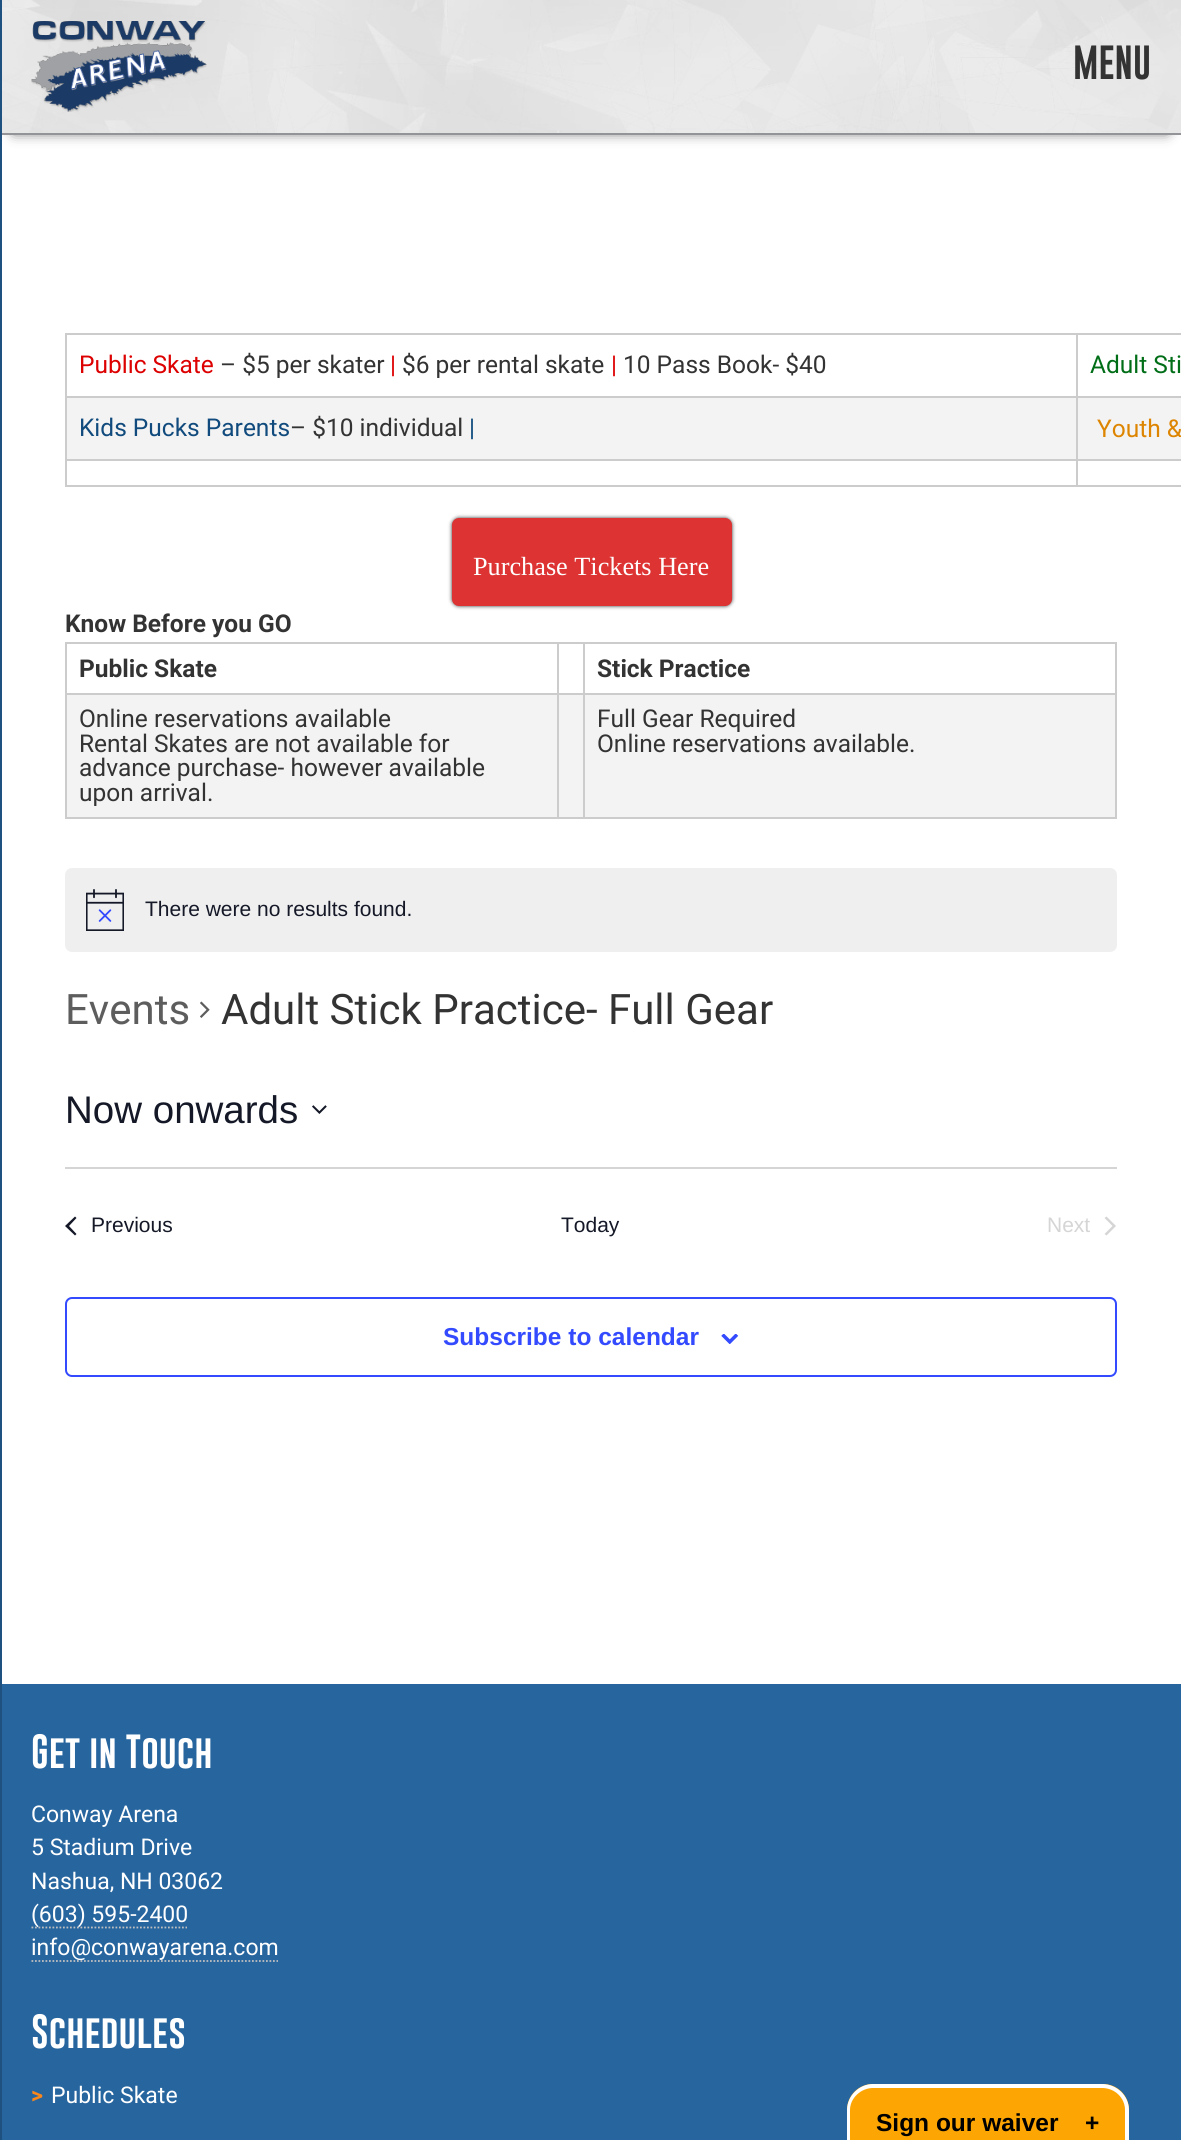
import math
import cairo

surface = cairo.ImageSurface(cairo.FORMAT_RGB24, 1181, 2140)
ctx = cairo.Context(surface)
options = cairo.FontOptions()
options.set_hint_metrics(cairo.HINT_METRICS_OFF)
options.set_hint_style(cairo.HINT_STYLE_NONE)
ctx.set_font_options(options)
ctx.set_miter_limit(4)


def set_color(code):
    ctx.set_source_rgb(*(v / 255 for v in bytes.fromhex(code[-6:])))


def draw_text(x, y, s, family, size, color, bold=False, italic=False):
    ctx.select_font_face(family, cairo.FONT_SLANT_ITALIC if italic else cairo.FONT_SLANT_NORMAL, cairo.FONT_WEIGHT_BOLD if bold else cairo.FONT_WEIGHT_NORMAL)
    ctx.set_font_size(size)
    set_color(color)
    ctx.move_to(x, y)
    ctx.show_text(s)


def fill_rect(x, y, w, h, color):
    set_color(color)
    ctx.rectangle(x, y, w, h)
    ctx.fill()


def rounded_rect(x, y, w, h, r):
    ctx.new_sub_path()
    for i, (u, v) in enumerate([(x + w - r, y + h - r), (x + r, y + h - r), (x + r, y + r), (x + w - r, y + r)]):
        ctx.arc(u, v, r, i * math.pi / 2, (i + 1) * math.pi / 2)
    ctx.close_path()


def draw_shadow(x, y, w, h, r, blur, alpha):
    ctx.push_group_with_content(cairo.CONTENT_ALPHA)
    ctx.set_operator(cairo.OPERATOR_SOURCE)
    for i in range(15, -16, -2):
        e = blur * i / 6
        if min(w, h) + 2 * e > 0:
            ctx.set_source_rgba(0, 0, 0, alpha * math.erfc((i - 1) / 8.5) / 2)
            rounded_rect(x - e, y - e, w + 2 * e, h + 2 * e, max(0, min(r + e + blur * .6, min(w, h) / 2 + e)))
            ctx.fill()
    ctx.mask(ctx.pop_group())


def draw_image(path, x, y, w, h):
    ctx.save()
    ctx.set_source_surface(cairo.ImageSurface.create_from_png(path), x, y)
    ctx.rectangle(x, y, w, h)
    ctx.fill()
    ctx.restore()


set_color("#ffffff")
ctx.paint()
set_color("#333333")
draw_shadow(14, 25, 1153, 106, 0, 7, 1)
fill_rect(0, 133, 1181, 2, "#929498")
fill_rect(0, 0, 2, 2140, "#1f5180")
draw_image("assets/img1.png", 2, 0, 1179, 133)
draw_image("assets/img2.png", 31, 21, 176, 91)
draw_text(1073, 79, "MENU", "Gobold", 35, "#333333", bold=True)
fill_rect(1076, 333, 105, 2, "#cccccc")
fill_rect(1076, 396, 105, 2, "#cccccc")
fill_rect(67, 398, 1114, 61, "#f3f3f3")
fill_rect(1076, 459, 105, 2, "#cccccc")
fill_rect(1076, 485, 105, 2, "#cccccc")
fill_rect(1076, 459, 2, 28, "#cccccc")
fill_rect(65, 459, 1013, 2, "#cccccc")
fill_rect(1076, 396, 2, 64, "#cccccc")
fill_rect(65, 396, 1013, 2, "#cccccc")
fill_rect(1076, 333, 2, 64, "#cccccc")
fill_rect(65, 333, 1013, 2, "#cccccc")
fill_rect(65, 485, 1013, 2, "#cccccc")
fill_rect(65, 459, 2, 28, "#cccccc")
fill_rect(65, 396, 2, 64, "#cccccc")
fill_rect(65, 333, 2, 64, "#cccccc")
draw_text(79, 373, "Public Skate", "Roboto", 24.5, "#dd0000")
draw_text(220, 373, "– $5 per skater", "Roboto", 24.5, "#333333")
draw_text(390, 373, "|", "Roboto", 24.5, "#dd0000")
draw_text(402, 373, "$6 per rental skate", "Roboto", 24.5, "#333333")
draw_text(611, 373, "|", "Roboto", 24.5, "#dd0000")
draw_text(623, 373, "10 Pass Book- $40", "Roboto", 24.5, "#333333")
draw_text(1090, 373, "Adult Sti", "Roboto", 24.5, "#006d17")
draw_text(79, 436, "Kids Pucks Parents", "Roboto", 24.5, "#114b7d")
draw_text(290, 436, "– $10 individual", "Roboto", 24.5, "#333333")
draw_text(469, 436, "|", "Roboto", 24.5, "#114b7d")
draw_text(1097, 437, "Youth &", "Roboto", 24.5, "#dd8500")
set_color("#333333")
draw_shadow(452, 518, 280, 88, 7, 2, 1)
set_color("#dd3333")
rounded_rect(454, 520, 276, 84, 5)
ctx.fill_preserve()
ctx.set_line_width(4)
ctx.stroke()
draw_text(473, 575, "Purchase Tickets Here", "Liberation Serif", 26.25, "#ffffff")
draw_text(65, 632, "Know Before you GO", "Roboto", 24.5, "#333333", bold=True)
fill_rect(583, 642, 534, 2, "#cccccc")
fill_rect(583, 693, 534, 2, "#cccccc")
fill_rect(67, 695, 1048, 122, "#f3f3f3")
fill_rect(1115, 693, 2, 126, "#cccccc")
fill_rect(583, 817, 534, 2, "#cccccc")
fill_rect(583, 693, 2, 126, "#cccccc")
fill_rect(557, 693, 28, 2, "#cccccc")
fill_rect(583, 642, 2, 53, "#cccccc")
fill_rect(557, 642, 28, 2, "#cccccc")
fill_rect(557, 817, 28, 2, "#cccccc")
fill_rect(557, 693, 2, 126, "#cccccc")
fill_rect(65, 693, 493, 2, "#cccccc")
fill_rect(557, 642, 2, 53, "#cccccc")
fill_rect(65, 642, 493, 2, "#cccccc")
fill_rect(65, 817, 493, 2, "#cccccc")
fill_rect(65, 693, 2, 126, "#cccccc")
fill_rect(65, 642, 2, 53, "#cccccc")
draw_text(79, 677, "Public Skate", "Roboto", 24.5, "#333333", bold=True)
fill_rect(1115, 642, 2, 53, "#cccccc")
draw_text(597, 677, "Stick Practice", "Roboto", 24.5, "#333333", bold=True)
draw_text(79, 727, "Online reservations available", "Roboto", 24.5, "#333333")
draw_text(79, 752, "Rental Skates are not available for", "Roboto", 24.5, "#333333")
draw_text(79, 776, "advance purchase- however available", "Roboto", 24.5, "#333333")
draw_text(79, 801, "upon arrival.", "Roboto", 24.5, "#333333")
draw_text(597, 727, "Full Gear Required", "Roboto", 24.5, "#333333")
draw_text(597, 752, "Online reservations available.", "Roboto", 24.5, "#333333")
set_color("#efeff0")
rounded_rect(65, 868, 1052, 84, 7)
ctx.fill()
draw_image("assets/img3.png", 86, 889, 38, 42)
draw_text(145, 916, "There were no results found.", "Liberation Sans", 21, "#141827")
draw_text(65, 1024, "Events", "Roboto", 42, "#5d5d5d")
draw_image("assets/img4.png", 200, 1001, 10, 17)
draw_text(221, 1024, "Adult Stick Practice- Full Gear", "Roboto", 42, "#333333")
draw_text(65, 1123, "Now onwards", "Liberation Sans", 38.5, "#141827")
draw_image("assets/img5.png", 312, 1105, 15, 9)
fill_rect(65, 1167, 1052, 2, "#d5d5d5")
set_color("#141827")
ctx.new_path()
ctx.move_to(76.5, 1234)
ctx.line_to(75, 1235.5)
ctx.line_to(65, 1226)
ctx.line_to(75, 1216.5)
ctx.line_to(76.5, 1218)
ctx.line_to(69, 1226)
ctx.close_path()
ctx.fill()
draw_text(91, 1232, "Previous", "Liberation Sans", 21, "#141827")
draw_text(561, 1232, "Today", "Liberation Sans", 21, "#141827")
draw_text(1047, 1232, "Next", "Liberation Sans", 21, "#d5d5d5")
ctx.new_path()
ctx.move_to(1104.5, 1218)
ctx.line_to(1106.5, 1216.5)
ctx.line_to(1116, 1226)
ctx.line_to(1106.5, 1235.5)
ctx.line_to(1104.5, 1234)
ctx.line_to(1112.5, 1226)
ctx.close_path()
ctx.fill()
rounded_rect(66, 1298, 1050, 78, 6)
set_color("#334aff")
ctx.set_line_width(2)
ctx.stroke()
draw_text(443, 1345, "Subscribe to calendar", "Liberation Sans", 24.5, "#334aff", bold=True)
draw_image("assets/img6.png", 721, 1334, 18, 10)
fill_rect(2, 1684, 1179, 456, "#27659f")
draw_text(31, 1768, "Get in Touch", "Gobold", 35, "#ffffff", bold=True)
draw_text(31, 1822, "Conway Arena", "Roboto", 23, "#ffffff")
draw_text(31, 1855, "5 Stadium Drive", "Roboto", 23, "#ffffff")
draw_text(31, 1889, "Nashua, NH 03062", "Roboto", 23, "#ffffff")
ctx.new_path()
ctx.move_to(31.5, 1927.5)
ctx.line_to(187, 1927.5)
set_color("#bfbfbf")
ctx.set_line_width(1.8)
ctx.set_dash([1.75, 1.75])
ctx.stroke()
draw_text(31, 1922, "(603) 595-2400", "Roboto", 23, "#ffffff")
ctx.new_path()
ctx.move_to(31.5, 1961)
ctx.line_to(278, 1961)
set_color("#bfbfbf")
ctx.stroke()
draw_text(31, 1955, "info@conwayarena.com", "Roboto", 23, "#ffffff")
draw_text(31, 2048, "Schedules", "Gobold", 35, "#ffffff", bold=True)
draw_text(31, 2103, ">", "Roboto", 23, "#fb871c", bold=True)
draw_text(51, 2103, "Public Skate", "Roboto", 23, "#ffffff")
set_color("#fca503")
ctx.new_path()
ctx.move_to(873, 2084)
ctx.line_to(1103, 2084)
ctx.curve_to(1117.5, 2084, 1129, 2095.5, 1129, 2110)
ctx.line_to(1129, 2140)
ctx.line_to(847, 2140)
ctx.line_to(847, 2110)
ctx.curve_to(847, 2095.5, 858.5, 2084, 873, 2084)
ctx.close_path()
ctx.fill()
set_color("#ffffff")
ctx.set_fill_rule(cairo.FILL_RULE_EVEN_ODD)
ctx.new_path()
ctx.move_to(873, 2084)
ctx.line_to(1102, 2084)
ctx.curve_to(1117, 2084, 1129, 2096, 1129, 2110)
ctx.line_to(1129, 2140)
ctx.line_to(847, 2140)
ctx.line_to(847, 2110)
ctx.curve_to(847, 2096, 859, 2084, 873, 2084)
ctx.close_path()
ctx.move_to(873, 2088)
ctx.line_to(1102, 2088)
ctx.curve_to(1115, 2088, 1125, 2098, 1125, 2110)
ctx.line_to(1125, 2140)
ctx.line_to(850, 2140)
ctx.line_to(850, 2110)
ctx.curve_to(850, 2098, 861, 2088, 873, 2088)
ctx.close_path()
ctx.fill()
draw_text(876, 2131, "Sign our waiver", "Liberation Sans", 24.5, "#000000", bold=True)
draw_text(1085, 2131, "+", "Liberation Sans", 24.5, "#000000", bold=True)
surface.write_to_png("output.png")
